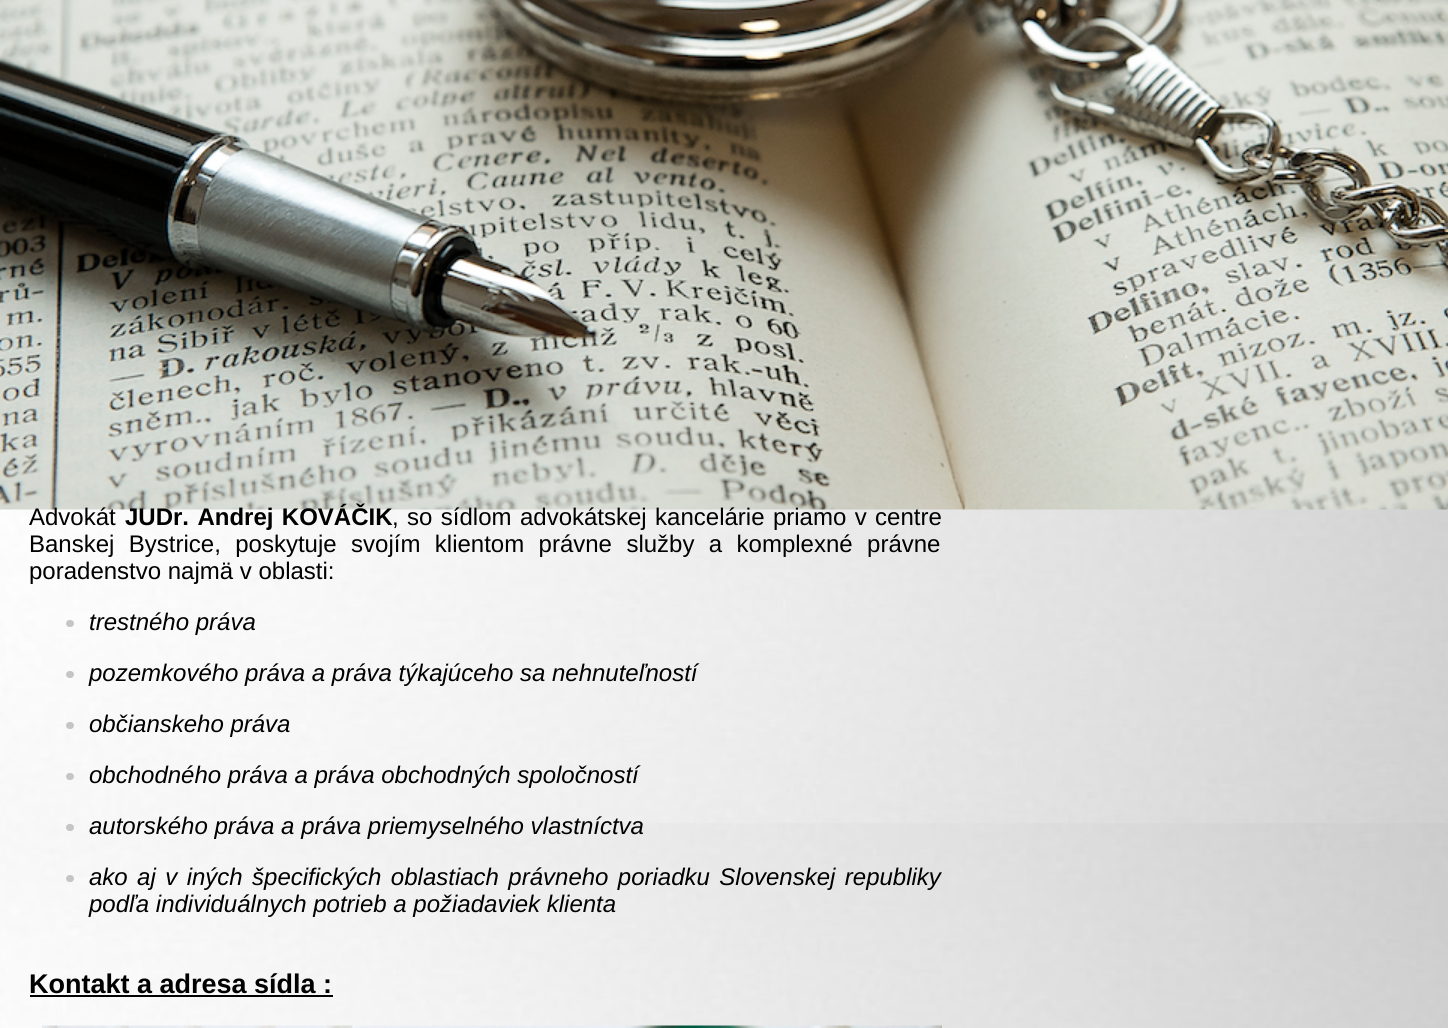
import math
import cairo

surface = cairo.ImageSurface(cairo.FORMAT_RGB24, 1448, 1028)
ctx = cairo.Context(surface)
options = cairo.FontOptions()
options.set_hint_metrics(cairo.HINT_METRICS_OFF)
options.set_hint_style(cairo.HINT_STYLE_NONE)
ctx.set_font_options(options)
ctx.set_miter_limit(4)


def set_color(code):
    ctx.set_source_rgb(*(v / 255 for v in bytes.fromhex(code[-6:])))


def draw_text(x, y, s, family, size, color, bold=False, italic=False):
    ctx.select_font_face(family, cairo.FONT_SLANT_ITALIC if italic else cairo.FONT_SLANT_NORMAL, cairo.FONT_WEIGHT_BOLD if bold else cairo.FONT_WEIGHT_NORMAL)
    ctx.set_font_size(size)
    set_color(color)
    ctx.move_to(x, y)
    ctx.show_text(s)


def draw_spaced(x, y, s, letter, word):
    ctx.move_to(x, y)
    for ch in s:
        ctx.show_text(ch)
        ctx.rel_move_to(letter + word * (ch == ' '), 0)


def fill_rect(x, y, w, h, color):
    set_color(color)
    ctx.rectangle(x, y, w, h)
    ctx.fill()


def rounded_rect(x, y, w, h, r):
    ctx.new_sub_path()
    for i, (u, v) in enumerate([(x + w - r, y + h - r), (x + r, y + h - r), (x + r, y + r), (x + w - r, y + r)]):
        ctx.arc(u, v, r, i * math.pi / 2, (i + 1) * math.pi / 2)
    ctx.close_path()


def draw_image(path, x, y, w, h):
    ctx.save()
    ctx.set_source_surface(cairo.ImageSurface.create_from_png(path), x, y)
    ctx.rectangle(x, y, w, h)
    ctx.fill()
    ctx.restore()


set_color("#ffffff")
ctx.paint()
draw_image("assets/img1.png", 0, 509, 1448, 519)
draw_image("assets/img2.png", 0, 0, 1448, 510)
draw_text(29, 525, "Advokát", "Liberation Sans", 24, "#000000")
ctx.select_font_face("Liberation Sans", cairo.FONT_SLANT_NORMAL, cairo.FONT_WEIGHT_BOLD)
draw_spaced(125, 525, "JUDr. Andrej KOVÁČIK", 0, 1.75)
ctx.select_font_face("Liberation Sans")
draw_spaced(392, 525, ", so sídlom advokátskej kancelárie priamo v centre", 0, 1.75)
draw_spaced(29, 552, "Banskej Bystrice, poskytuje svojím klientom právne služby a komplexné právne", 0, 7.75)
draw_text(29, 579, "poradenstvo najmä v oblasti:", "Liberation Sans", 24, "#000000")
set_color("#c5c5c5")
rounded_rect(66, 620, 8, 7, 3.5)
ctx.fill()
draw_text(89, 630, "trestného práva", "Liberation Sans", 24, "#000000", italic=True)
set_color("#c5c5c5")
rounded_rect(66, 671, 8, 7, 3.5)
ctx.fill()
draw_text(89, 681, "pozemkového práva a práva týkajúceho sa nehnuteľností", "Liberation Sans", 24, "#000000", italic=True)
set_color("#c5c5c5")
rounded_rect(66, 722, 8, 7, 3.5)
ctx.fill()
draw_text(89, 732, "občianskeho práva", "Liberation Sans", 24, "#000000", italic=True)
set_color("#c5c5c5")
rounded_rect(66, 773, 8, 7, 3.5)
ctx.fill()
draw_text(89, 783, "obchodného práva a práva obchodných spoločností", "Liberation Sans", 24, "#000000", italic=True)
set_color("#c5c5c5")
rounded_rect(66, 824, 8, 7, 3.5)
ctx.fill()
draw_text(89, 834, "autorského práva a práva priemyselného vlastníctva", "Liberation Sans", 24, "#000000", italic=True)
set_color("#c5c5c5")
rounded_rect(66, 875, 8, 7, 3.5)
ctx.fill()
set_color("#000000")
draw_spaced(89, 885, "ako aj v iných špecifických oblastiach právneho poriadku Slovenskej republiky", 0, 2.75)
draw_text(89, 912, "podľa individuálnych potrieb a požiadaviek klienta", "Liberation Sans", 24, "#000000", italic=True)
draw_text(29, 993, "Kontakt a adresa sídla :", "Liberation Sans", 27, "#000000", bold=True)
fill_rect(30, 995, 303, 2, "#000000")
draw_image("assets/img3.png", 42, 1025, 900, 3)
surface.write_to_png("output.png")
